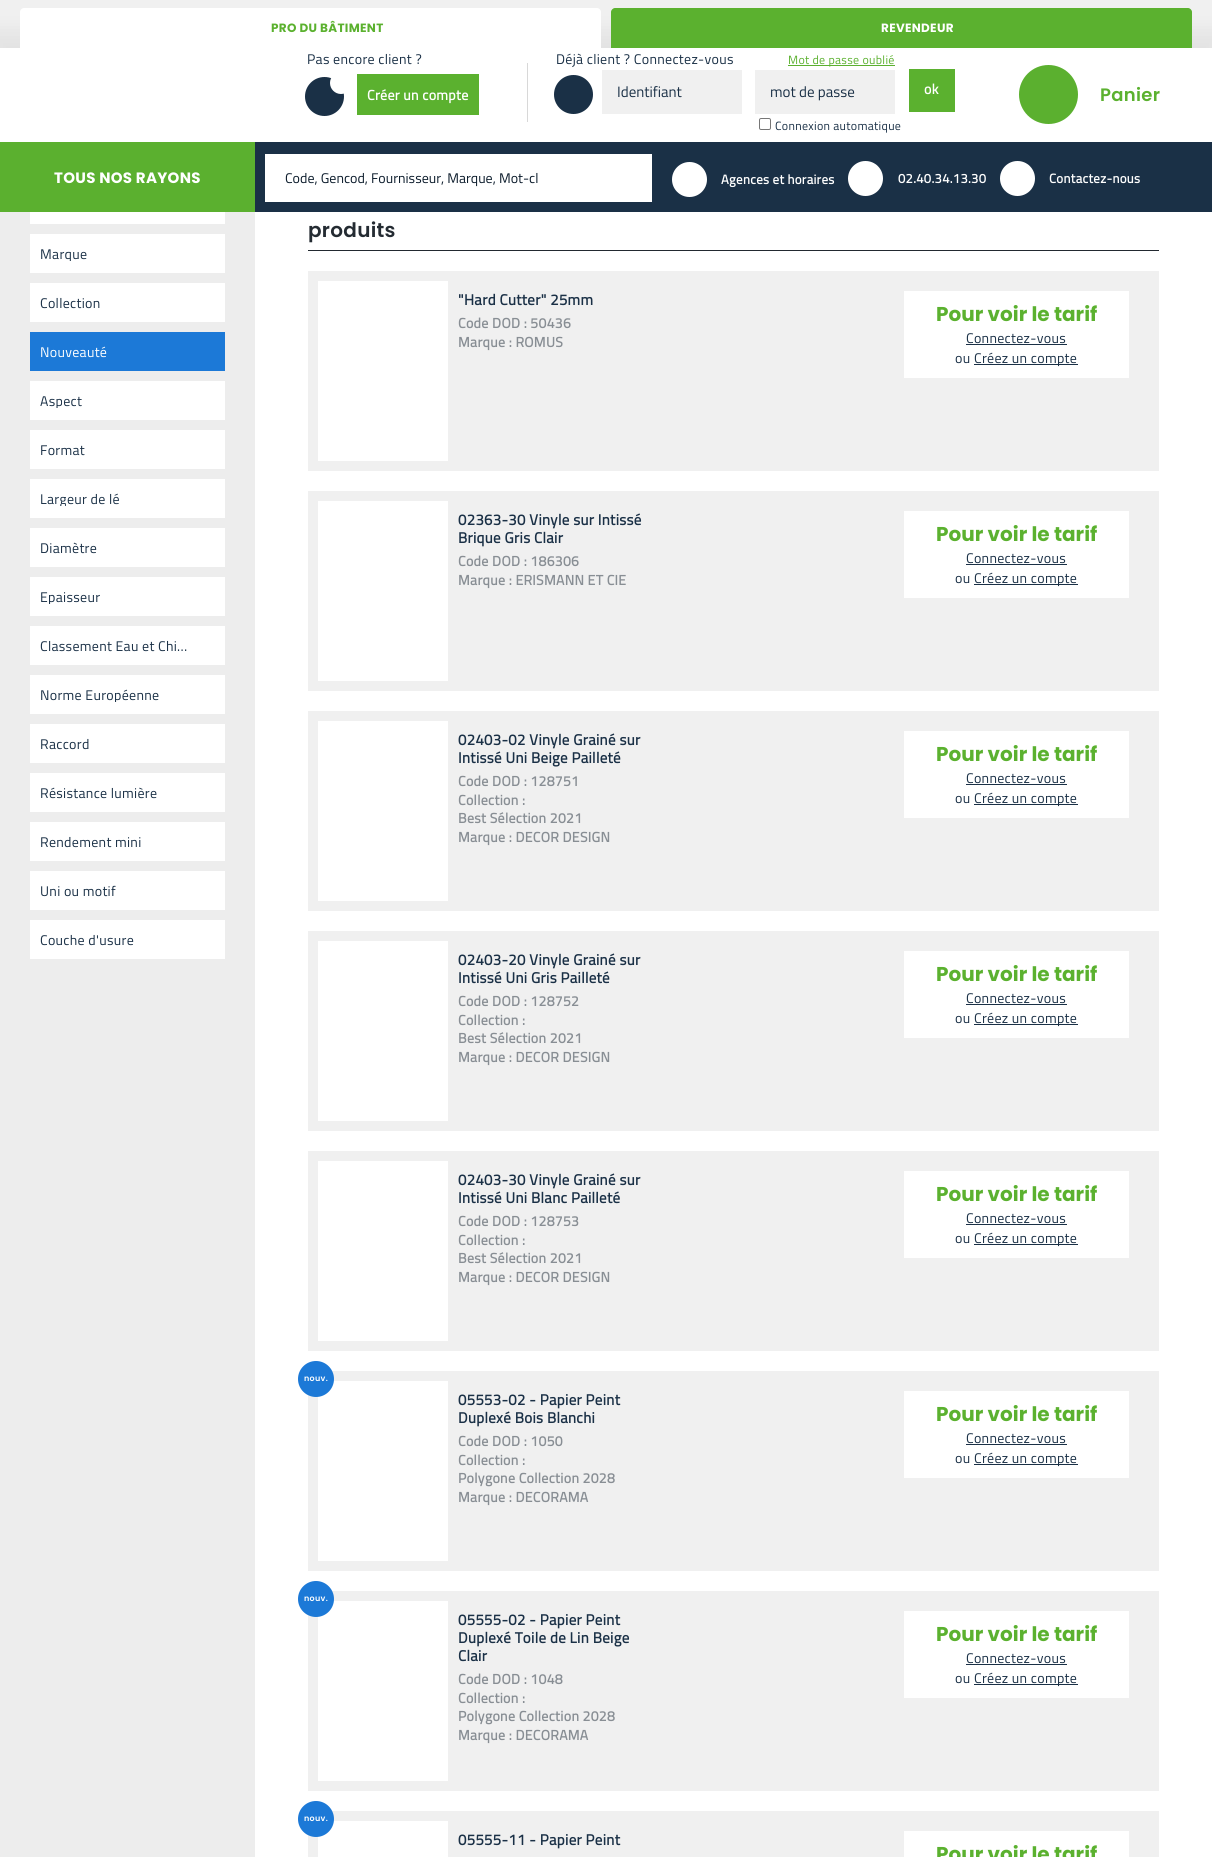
import math
import cairo

surface = cairo.ImageSurface(cairo.FORMAT_RGB24, 1212, 1857)
ctx = cairo.Context(surface)
options = cairo.FontOptions()
options.set_hint_metrics(cairo.HINT_METRICS_OFF)
options.set_hint_style(cairo.HINT_STYLE_NONE)
ctx.set_font_options(options)
ctx.set_miter_limit(4)


def set_color(code):
    ctx.set_source_rgb(*(v / 255 for v in bytes.fromhex(code[-6:])))


def draw_text(x, y, s, family, size, color, bold=False, italic=False):
    ctx.select_font_face(family, cairo.FONT_SLANT_ITALIC if italic else cairo.FONT_SLANT_NORMAL, cairo.FONT_WEIGHT_BOLD if bold else cairo.FONT_WEIGHT_NORMAL)
    ctx.set_font_size(size)
    set_color(color)
    ctx.move_to(x, y)
    ctx.show_text(s)


def draw_spaced(x, y, s, letter, word):
    ctx.move_to(x, y)
    for ch in s:
        ctx.show_text(ch)
        ctx.rel_move_to(letter + word * (ch == ' '), 0)


def fill_rect(x, y, w, h, color):
    set_color(color)
    ctx.rectangle(x, y, w, h)
    ctx.fill()


def rounded_rect(x, y, w, h, r):
    ctx.new_sub_path()
    for i, (u, v) in enumerate([(x + w - r, y + h - r), (x + r, y + h - r), (x + r, y + r), (x + w - r, y + r)]):
        ctx.arc(u, v, r, i * math.pi / 2, (i + 1) * math.pi / 2)
    ctx.close_path()


def draw_shadow(x, y, w, h, r, blur, alpha):
    ctx.push_group_with_content(cairo.CONTENT_ALPHA)
    ctx.set_operator(cairo.OPERATOR_SOURCE)
    for i in range(15, -16, -2):
        e = blur * i / 6
        if min(w, h) + 2 * e > 0:
            ctx.set_source_rgba(0, 0, 0, alpha * math.erfc((i - 1) / 8.5) / 2)
            rounded_rect(x - e, y - e, w + 2 * e, h + 2 * e, max(0, min(r + e + blur * .6, min(w, h) / 2 + e)))
            ctx.fill()
    ctx.mask(ctx.pop_group())


set_color("#ffffff")
ctx.paint()
fill_rect(0, 0, 1212, 48, "#f0f0f0")
set_color("#000000")
draw_shadow(-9, 31, 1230, 112, 0, 10, 0.06)
set_color("#ffffff")
ctx.new_path()
ctx.move_to(24, 8)
ctx.line_to(597, 8)
ctx.curve_to(599, 8, 601, 10, 601, 12)
ctx.line_to(601, 48)
ctx.line_to(20, 48)
ctx.line_to(20, 12)
ctx.curve_to(20, 10, 22, 8, 24, 8)
ctx.close_path()
ctx.fill()
ctx.select_font_face("Poppins", cairo.FONT_SLANT_NORMAL, cairo.FONT_WEIGHT_BOLD)
ctx.set_font_size(12)
set_color("#5bb12f")
draw_spaced(271, 32, "PRO DU BÂTIMENT", 0.3, 0)
ctx.new_path()
ctx.move_to(615, 8)
ctx.line_to(1188, 8)
ctx.curve_to(1190, 8, 1192, 10, 1192, 12)
ctx.line_to(1192, 48)
ctx.line_to(611, 48)
ctx.line_to(611, 12)
ctx.curve_to(611, 10, 613, 8, 615, 8)
ctx.close_path()
ctx.fill()
set_color("#ffffff")
draw_spaced(881, 32, "REVENDEUR", 0.3, 0)
fill_rect(0, 48, 1212, 94, "#ffffff")
ctx.select_font_face("Titillium Web")
ctx.set_font_size(14)
set_color("#1a3046")
draw_spaced(307, 64, "Pas encore client ?", 0.3, 0)
ctx.new_path()
ctx.arc(324.5, 96.5, 19.5, 0, 2 * math.pi)
ctx.fill()
set_color("#ffffff")
ctx.arc(341, 83, 11, 0, 2 * math.pi)
ctx.fill()
fill_rect(357, 74, 122, 41, "#5bb12f")
ctx.select_font_face("Titillium Web", cairo.FONT_SLANT_NORMAL, cairo.FONT_WEIGHT_BOLD)
set_color("#ffffff")
draw_spaced(367, 100, "Créer un compte", 0.3, 0)
fill_rect(527, 63, 1, 59, "#d8d8d8")
ctx.select_font_face("Titillium Web")
set_color("#1a3046")
draw_spaced(556, 64, "Déjà client ? Connectez-vous", 0.3, 0)
fill_rect(788, 65, 107, 1, "#5bb02f")
ctx.set_font_size(12)
set_color("#5bb12f")
draw_spaced(788, 64, "Mot de passe oublié", 0.3, 0)
rounded_rect(759.5, 118.5, 11, 11, 1.5)
set_color("#767676")
ctx.set_line_width(1)
ctx.stroke()
set_color("#1a3046")
draw_spaced(775, 130, "Connexion automatique", 0.3, 0)
fill_rect(755, 70, 140, 44, "#f0f0f0")
draw_text(770, 97, "mot de passe", "Titillium Web", 15, "#1a3046")
ctx.new_path()
ctx.arc(573.5, 94.5, 19.5, 0, 2 * math.pi)
ctx.fill()
fill_rect(602, 70, 140, 44, "#f0f0f0")
draw_text(617, 97, "Identifiant", "Titillium Web", 15, "#1a3046")
fill_rect(909, 69, 46, 43, "#5bb12f")
ctx.select_font_face("Titillium Web", cairo.FONT_SLANT_NORMAL, cairo.FONT_WEIGHT_BOLD)
ctx.set_font_size(14)
set_color("#ffffff")
draw_spaced(924, 94, "ok", 0.3, 0)
set_color("#5bb02f")
ctx.new_path()
ctx.arc(1048.5, 94.5, 29.5, 0, 2 * math.pi)
ctx.fill()
ctx.select_font_face("Poppins SemiBold")
ctx.set_font_size(18)
set_color("#5bb12f")
draw_spaced(1100, 101, "Panier", 0.3, 0)
fill_rect(255, 142, 957, 70, "#1a3046")
fill_rect(0, 142, 255, 70, "#5bb02f")
ctx.select_font_face("Poppins", cairo.FONT_SLANT_NORMAL, cairo.FONT_WEIGHT_BOLD)
ctx.set_font_size(15)
set_color("#ffffff")
draw_spaced(54, 183, "TOUS NOS RAYONS", 0.3, 0)
fill_rect(265, 154, 387, 48, "#ffffff")
draw_text(285, 183, "Code, Gencod, Fournisseur, Marque, Mot-cl", "Titillium Web", 14, "#0b1b2b")
set_color("#ffffff")
ctx.new_path()
ctx.arc(689.5, 179.5, 17.5, 0, 2 * math.pi)
ctx.fill()
ctx.select_font_face("Titillium Web", cairo.FONT_SLANT_NORMAL, cairo.FONT_WEIGHT_BOLD)
ctx.set_font_size(13)
draw_spaced(721, 184, "Agences et horaires", 0.3, 0)
ctx.new_path()
ctx.arc(865.5, 178.5, 17.5, 0, 2 * math.pi)
ctx.fill()
draw_spaced(898, 183, "02.40.34.13.30", 0.3, 0)
ctx.new_path()
ctx.arc(1017.5, 178.5, 17.5, 0, 2 * math.pi)
ctx.fill()
draw_spaced(1049, 183, "Contactez-nous", 0.3, 0)
fill_rect(0, 212, 255, 1645, "#ededed")
fill_rect(30, 212, 195, 12, "#ffffff")
fill_rect(30, 234, 195, 39, "#ffffff")
ctx.save()
ctx.rectangle(40, 246, 155, 15)
ctx.clip()
ctx.select_font_face("Titillium Web")
ctx.set_font_size(14)
set_color("#1a3046")
draw_spaced(40, 259, "Marque", 0.3, 0)
ctx.restore()
fill_rect(30, 283, 195, 39, "#ffffff")
ctx.select_font_face("Titillium Web")
ctx.set_font_size(14)
set_color("#1a3046")
draw_spaced(40, 308, "Collection", 0.3, 0)
fill_rect(30, 332, 195, 39, "#1c79d7")
set_color("#ffffff")
draw_spaced(40, 357, "Nouveauté", 0.3, 0)
fill_rect(30, 381, 195, 39, "#ffffff")
ctx.save()
ctx.rectangle(40, 393, 155, 15)
ctx.clip()
set_color("#1a3046")
draw_spaced(40, 406, "Aspect", 0.3, 0)
ctx.restore()
fill_rect(30, 430, 195, 39, "#ffffff")
set_color("#1a3046")
draw_spaced(40, 455, "Format", 0.3, 0)
fill_rect(30, 479, 195, 39, "#ffffff")
ctx.save()
ctx.rectangle(40, 491, 155, 15)
ctx.clip()
set_color("#1a3046")
draw_spaced(40, 504, "Largeur de lé", 0.3, 0)
ctx.restore()
fill_rect(30, 528, 195, 39, "#ffffff")
set_color("#1a3046")
draw_spaced(40, 553, "Diamètre", 0.3, 0)
fill_rect(30, 577, 195, 39, "#ffffff")
ctx.save()
ctx.rectangle(40, 589, 155, 15)
ctx.clip()
set_color("#1a3046")
draw_spaced(40, 602, "Epaisseur", 0.3, 0)
ctx.restore()
fill_rect(30, 626, 195, 39, "#ffffff")
set_color("#1a3046")
draw_spaced(40, 651, "Classement Eau et Chi…", 0.3, 0)
fill_rect(30, 675, 195, 39, "#ffffff")
ctx.save()
ctx.rectangle(40, 687, 155, 15)
ctx.clip()
set_color("#1a3046")
draw_spaced(40, 700, "Norme Européenne", 0.3, 0)
ctx.restore()
fill_rect(30, 724, 195, 39, "#ffffff")
set_color("#1a3046")
draw_spaced(40, 749, "Raccord", 0.3, 0)
fill_rect(30, 773, 195, 39, "#ffffff")
set_color("#1a3046")
draw_spaced(40, 798, "Résistance lumière", 0.3, 0)
fill_rect(30, 822, 195, 39, "#ffffff")
set_color("#1a3046")
draw_spaced(40, 847, "Rendement mini", 0.3, 0)
fill_rect(30, 871, 195, 39, "#ffffff")
set_color("#1a3046")
draw_spaced(40, 896, "Uni ou motif", 0.3, 0)
fill_rect(30, 920, 195, 39, "#ffffff")
set_color("#1a3046")
draw_spaced(40, 945, "Couche d'usure", 0.3, 0)
fill_rect(308, 250, 851, 1, "#222930")
ctx.select_font_face("Poppins SemiBold")
ctx.set_font_size(20)
set_color("#242b32")
draw_spaced(308, 237, "produits", 0.3, 0)
fill_rect(308, 271, 851, 200, "#f0f0f0")
fill_rect(318, 281, 130, 180, "#ffffff")
ctx.select_font_face("Titillium Web", cairo.FONT_SLANT_NORMAL, cairo.FONT_WEIGHT_BOLD)
ctx.set_font_size(15)
set_color("#1a3046")
draw_spaced(458, 305, "\"Hard Cutter\" 25mm", 0.3, 0)
ctx.set_font_size(14)
set_color("#888e94")
draw_spaced(458, 328, "Code DOD : 50436", 0.3, 0)
draw_spaced(458, 347, "Marque : ROMUS", 0.3, 0)
fill_rect(904, 291, 225, 87, "#ffffff")
draw_text(936, 321, "Pour voir le tarif", "Poppins", 20, "#5bb12f", bold=True)
ctx.select_font_face("Titillium Web")
ctx.set_font_size(14)
set_color("#1a3046")
draw_spaced(966, 343, "Connectez-vous", 0.3, 0)
fill_rect(966, 344, 101, 1, "#1a3046")
draw_spaced(955, 363, "ou", 0.3, 0)
fill_rect(974, 364, 104, 1, "#1a3046")
draw_spaced(974, 363, "Créez un compte", 0.3, 0)
fill_rect(308, 491, 851, 200, "#f0f0f0")
fill_rect(318, 501, 130, 180, "#ffffff")
ctx.select_font_face("Titillium Web", cairo.FONT_SLANT_NORMAL, cairo.FONT_WEIGHT_BOLD)
ctx.set_font_size(15)
set_color("#1a3046")
draw_spaced(458, 525, "02363-30 Vinyle sur Intissé", 0.3, 0)
draw_spaced(458, 543, "Brique Gris Clair", 0.3, 0)
ctx.set_font_size(14)
set_color("#888e94")
draw_spaced(458, 566, "Code DOD : 186306", 0.3, 0)
draw_spaced(458, 585, "Marque : ERISMANN ET CIE", 0.3, 0)
fill_rect(904, 511, 225, 87, "#ffffff")
draw_text(936, 541, "Pour voir le tarif", "Poppins", 20, "#5bb12f", bold=True)
ctx.select_font_face("Titillium Web")
ctx.set_font_size(14)
set_color("#1a3046")
draw_spaced(966, 563, "Connectez-vous", 0.3, 0)
fill_rect(966, 564, 101, 1, "#1a3046")
draw_spaced(955, 583, "ou", 0.3, 0)
fill_rect(974, 584, 104, 1, "#1a3046")
draw_spaced(974, 583, "Créez un compte", 0.3, 0)
fill_rect(308, 711, 851, 200, "#f0f0f0")
fill_rect(318, 721, 130, 180, "#ffffff")
ctx.select_font_face("Titillium Web", cairo.FONT_SLANT_NORMAL, cairo.FONT_WEIGHT_BOLD)
ctx.set_font_size(15)
set_color("#1a3046")
draw_spaced(458, 745, "02403-02 Vinyle Grainé sur", 0.3, 0)
draw_spaced(458, 763, "Intissé Uni Beige Pailleté", 0.3, 0)
ctx.set_font_size(14)
set_color("#888e94")
draw_spaced(458, 786, "Code DOD : 128751", 0.3, 0)
draw_spaced(458, 805, "Collection :", 0.3, 0)
draw_spaced(458, 823, "Best Sélection 2021", 0.3, 0)
draw_spaced(458, 842, "Marque : DECOR DESIGN", 0.3, 0)
fill_rect(904, 731, 225, 87, "#ffffff")
draw_text(936, 761, "Pour voir le tarif", "Poppins", 20, "#5bb12f", bold=True)
ctx.select_font_face("Titillium Web")
ctx.set_font_size(14)
set_color("#1a3046")
draw_spaced(966, 783, "Connectez-vous", 0.3, 0)
fill_rect(966, 784, 101, 1, "#1a3046")
draw_spaced(955, 803, "ou", 0.3, 0)
fill_rect(974, 804, 104, 1, "#1a3046")
draw_spaced(974, 803, "Créez un compte", 0.3, 0)
fill_rect(308, 931, 851, 200, "#f0f0f0")
fill_rect(318, 941, 130, 180, "#ffffff")
ctx.select_font_face("Titillium Web", cairo.FONT_SLANT_NORMAL, cairo.FONT_WEIGHT_BOLD)
ctx.set_font_size(15)
set_color("#1a3046")
draw_spaced(458, 965, "02403-20 Vinyle Grainé sur", 0.3, 0)
draw_spaced(458, 983, "Intissé Uni Gris Pailleté", 0.3, 0)
ctx.set_font_size(14)
set_color("#888e94")
draw_spaced(458, 1006, "Code DOD : 128752", 0.3, 0)
draw_spaced(458, 1025, "Collection :", 0.3, 0)
draw_spaced(458, 1043, "Best Sélection 2021", 0.3, 0)
draw_spaced(458, 1062, "Marque : DECOR DESIGN", 0.3, 0)
fill_rect(904, 951, 225, 87, "#ffffff")
draw_text(936, 981, "Pour voir le tarif", "Poppins", 20, "#5bb12f", bold=True)
ctx.select_font_face("Titillium Web")
ctx.set_font_size(14)
set_color("#1a3046")
draw_spaced(966, 1003, "Connectez-vous", 0.3, 0)
fill_rect(966, 1004, 101, 1, "#1a3046")
draw_spaced(955, 1023, "ou", 0.3, 0)
fill_rect(974, 1024, 104, 1, "#1a3046")
draw_spaced(974, 1023, "Créez un compte", 0.3, 0)
fill_rect(308, 1151, 851, 200, "#f0f0f0")
fill_rect(318, 1161, 130, 180, "#ffffff")
ctx.select_font_face("Titillium Web", cairo.FONT_SLANT_NORMAL, cairo.FONT_WEIGHT_BOLD)
ctx.set_font_size(15)
set_color("#1a3046")
draw_spaced(458, 1185, "02403-30 Vinyle Grainé sur", 0.3, 0)
draw_spaced(458, 1203, "Intissé Uni Blanc Pailleté", 0.3, 0)
ctx.set_font_size(14)
set_color("#888e94")
draw_spaced(458, 1226, "Code DOD : 128753", 0.3, 0)
draw_spaced(458, 1245, "Collection :", 0.3, 0)
draw_spaced(458, 1263, "Best Sélection 2021", 0.3, 0)
draw_spaced(458, 1282, "Marque : DECOR DESIGN", 0.3, 0)
fill_rect(904, 1171, 225, 87, "#ffffff")
draw_text(936, 1201, "Pour voir le tarif", "Poppins", 20, "#5bb12f", bold=True)
ctx.select_font_face("Titillium Web")
ctx.set_font_size(14)
set_color("#1a3046")
draw_spaced(966, 1223, "Connectez-vous", 0.3, 0)
fill_rect(966, 1224, 101, 1, "#1a3046")
draw_spaced(955, 1243, "ou", 0.3, 0)
fill_rect(974, 1244, 104, 1, "#1a3046")
draw_spaced(974, 1243, "Créez un compte", 0.3, 0)
fill_rect(308, 1371, 851, 200, "#f0f0f0")
fill_rect(318, 1381, 130, 180, "#ffffff")
set_color("#1c79d7")
ctx.new_path()
ctx.arc(316, 1379, 18, 0, 2 * math.pi)
ctx.fill()
ctx.select_font_face("Poppins SemiBold")
ctx.set_font_size(8)
set_color("#ffffff")
draw_spaced(304, 1381, "nouv.", 0.3, 0)
ctx.select_font_face("Titillium Web", cairo.FONT_SLANT_NORMAL, cairo.FONT_WEIGHT_BOLD)
ctx.set_font_size(15)
set_color("#1a3046")
draw_spaced(458, 1405, "05553-02 - Papier Peint", 0.3, 0)
draw_spaced(458, 1423, "Duplexé Bois Blanchi", 0.3, 0)
ctx.set_font_size(14)
set_color("#888e94")
draw_spaced(458, 1446, "Code DOD : 1050", 0.3, 0)
draw_spaced(458, 1465, "Collection :", 0.3, 0)
draw_spaced(458, 1483, "Polygone Collection 2028", 0.3, 0)
draw_spaced(458, 1502, "Marque : DECORAMA", 0.3, 0)
fill_rect(904, 1391, 225, 87, "#ffffff")
draw_text(936, 1421, "Pour voir le tarif", "Poppins", 20, "#5bb12f", bold=True)
ctx.select_font_face("Titillium Web")
ctx.set_font_size(14)
set_color("#1a3046")
draw_spaced(966, 1443, "Connectez-vous", 0.3, 0)
fill_rect(966, 1444, 101, 1, "#1a3046")
draw_spaced(955, 1463, "ou", 0.3, 0)
fill_rect(974, 1464, 104, 1, "#1a3046")
draw_spaced(974, 1463, "Créez un compte", 0.3, 0)
fill_rect(308, 1591, 851, 200, "#f0f0f0")
fill_rect(318, 1601, 130, 180, "#ffffff")
set_color("#1c79d7")
ctx.new_path()
ctx.arc(316, 1599, 18, 0, 2 * math.pi)
ctx.fill()
ctx.select_font_face("Poppins SemiBold")
ctx.set_font_size(8)
set_color("#ffffff")
draw_spaced(304, 1601, "nouv.", 0.3, 0)
ctx.select_font_face("Titillium Web", cairo.FONT_SLANT_NORMAL, cairo.FONT_WEIGHT_BOLD)
ctx.set_font_size(15)
set_color("#1a3046")
draw_spaced(458, 1625, "05555-02 - Papier Peint", 0.3, 0)
draw_spaced(458, 1643, "Duplexé Toile de Lin Beige", 0.3, 0)
draw_spaced(458, 1661, "Clair", 0.3, 0)
ctx.set_font_size(14)
set_color("#888e94")
draw_spaced(458, 1684, "Code DOD : 1048", 0.3, 0)
draw_spaced(458, 1703, "Collection :", 0.3, 0)
draw_spaced(458, 1721, "Polygone Collection 2028", 0.3, 0)
draw_spaced(458, 1740, "Marque : DECORAMA", 0.3, 0)
fill_rect(904, 1611, 225, 87, "#ffffff")
draw_text(936, 1641, "Pour voir le tarif", "Poppins", 20, "#5bb12f", bold=True)
ctx.select_font_face("Titillium Web")
ctx.set_font_size(14)
set_color("#1a3046")
draw_spaced(966, 1663, "Connectez-vous", 0.3, 0)
fill_rect(966, 1664, 101, 1, "#1a3046")
draw_spaced(955, 1683, "ou", 0.3, 0)
fill_rect(974, 1684, 104, 1, "#1a3046")
draw_spaced(974, 1683, "Créez un compte", 0.3, 0)
fill_rect(308, 1811, 851, 46, "#f0f0f0")
fill_rect(318, 1821, 130, 36, "#ffffff")
set_color("#1c79d7")
ctx.new_path()
ctx.arc(316, 1819, 18, 0, 2 * math.pi)
ctx.fill()
ctx.select_font_face("Poppins SemiBold")
ctx.set_font_size(8)
set_color("#ffffff")
draw_spaced(304, 1821, "nouv.", 0.3, 0)
ctx.select_font_face("Titillium Web", cairo.FONT_SLANT_NORMAL, cairo.FONT_WEIGHT_BOLD)
ctx.set_font_size(15)
set_color("#1a3046")
draw_spaced(458, 1845, "05555-11 - Papier Peint", 0.3, 0)
fill_rect(904, 1831, 225, 26, "#ffffff")
draw_text(936, 1861, "Pour voir le tarif", "Poppins", 20, "#5bb12f", bold=True)
surface.write_to_png("output.png")
